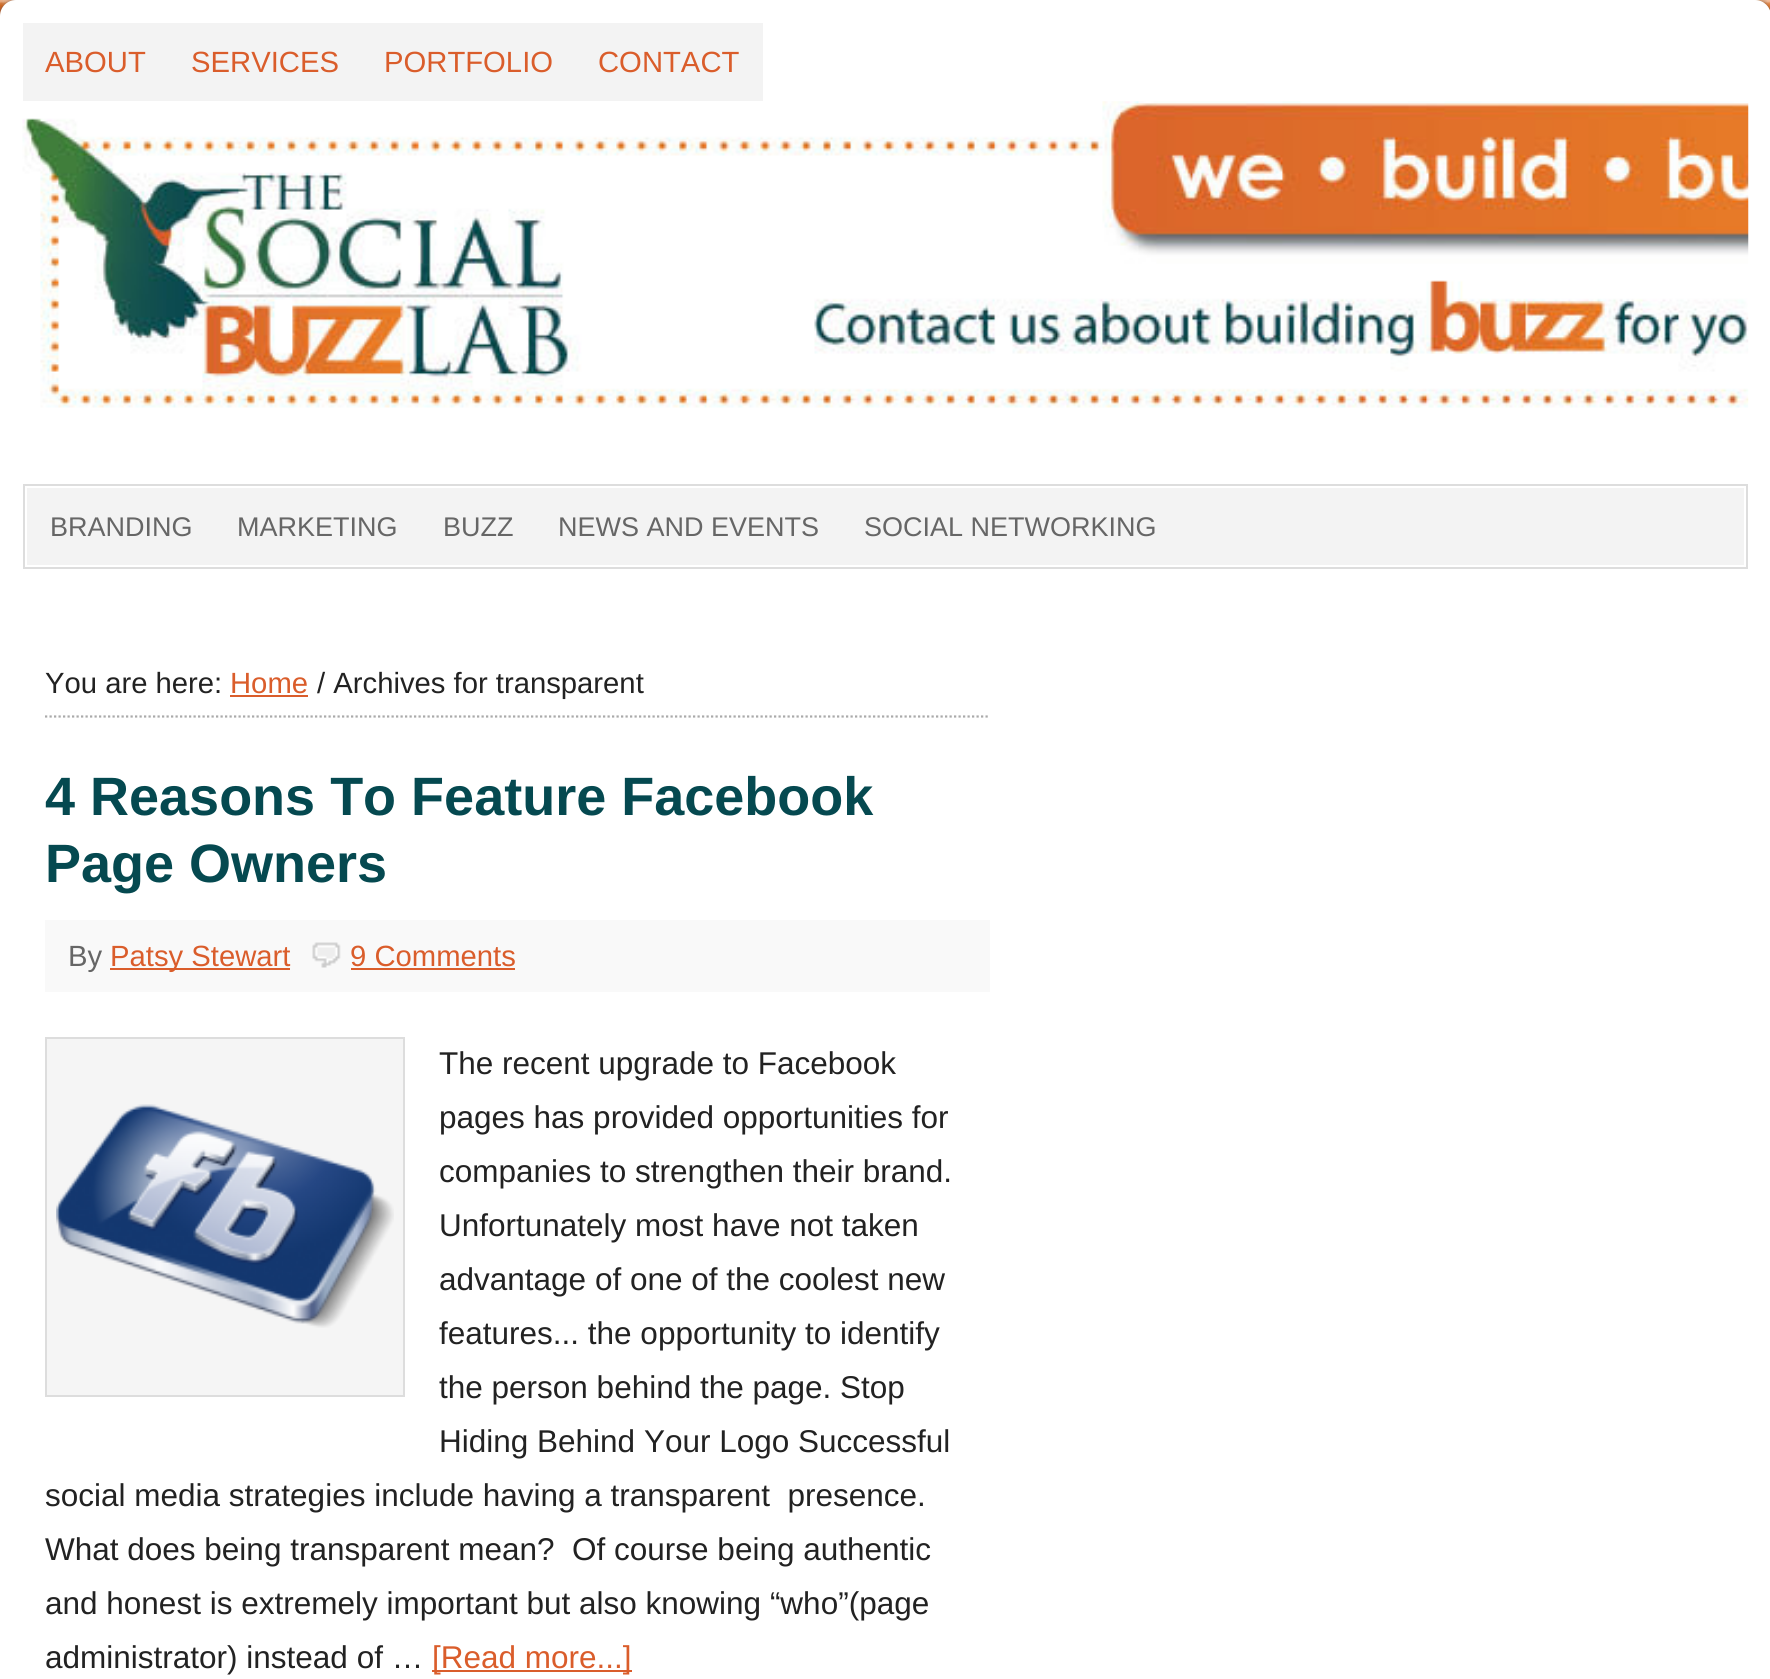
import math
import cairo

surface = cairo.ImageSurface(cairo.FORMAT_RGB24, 1770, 1679)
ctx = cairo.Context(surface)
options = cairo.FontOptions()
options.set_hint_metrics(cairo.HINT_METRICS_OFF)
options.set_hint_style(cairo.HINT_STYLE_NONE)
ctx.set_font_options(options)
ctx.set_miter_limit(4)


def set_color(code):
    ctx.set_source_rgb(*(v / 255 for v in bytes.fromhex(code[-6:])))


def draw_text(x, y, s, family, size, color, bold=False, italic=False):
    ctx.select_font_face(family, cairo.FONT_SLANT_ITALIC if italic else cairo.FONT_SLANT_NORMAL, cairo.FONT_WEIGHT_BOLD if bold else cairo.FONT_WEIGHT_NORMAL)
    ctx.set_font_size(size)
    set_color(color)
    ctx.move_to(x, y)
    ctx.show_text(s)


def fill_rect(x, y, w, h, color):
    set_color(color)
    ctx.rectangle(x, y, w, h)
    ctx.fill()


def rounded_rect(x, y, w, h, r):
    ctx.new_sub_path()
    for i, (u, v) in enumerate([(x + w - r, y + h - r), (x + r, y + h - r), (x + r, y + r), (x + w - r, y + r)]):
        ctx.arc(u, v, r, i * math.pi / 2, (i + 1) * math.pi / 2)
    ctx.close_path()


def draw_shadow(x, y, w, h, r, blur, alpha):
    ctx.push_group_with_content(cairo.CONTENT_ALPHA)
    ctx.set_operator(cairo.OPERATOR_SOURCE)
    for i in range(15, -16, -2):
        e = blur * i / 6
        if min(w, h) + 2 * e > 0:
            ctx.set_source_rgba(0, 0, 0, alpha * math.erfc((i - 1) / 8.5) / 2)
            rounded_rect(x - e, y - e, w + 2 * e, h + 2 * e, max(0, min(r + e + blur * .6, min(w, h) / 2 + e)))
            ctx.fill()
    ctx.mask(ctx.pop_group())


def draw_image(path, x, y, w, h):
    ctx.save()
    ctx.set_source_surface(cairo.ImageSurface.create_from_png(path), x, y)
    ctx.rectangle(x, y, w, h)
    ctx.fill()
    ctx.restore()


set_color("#ffffff")
ctx.paint()
draw_image("assets/img1.png", 0, 0, 1770, 16)
set_color("#333333")
draw_shadow(0, 2, 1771, 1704, 16, 3.5, 1)
set_color("#ffffff")
rounded_rect(0, 0, 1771, 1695, 16)
ctx.fill()
fill_rect(23, 23, 740, 78, "#f3f3f3")
draw_text(45, 72, "ABOUT", "Liberation Sans", 29.25, "#da5d2b")
draw_text(191, 72, "SERVICES", "Liberation Sans", 29.25, "#da5d2b")
draw_text(384, 72, "PORTFOLIO", "Liberation Sans", 29.25, "#da5d2b")
draw_text(598, 72, "CONTACT", "Liberation Sans", 29.25, "#da5d2b")
draw_image("assets/img2.png", 22, 101, 1727, 307)
fill_rect(27, 488, 1717, 77, "#f3f3f3")
ctx.rectangle(24, 485, 1723, 83)
set_color("#dddddd")
ctx.stroke()
draw_text(50, 536, "BRANDING", "Liberation Sans", 27, "#666666")
draw_text(237, 536, "MARKETING", "Liberation Sans", 27, "#666666")
draw_text(443, 536, "BUZZ", "Liberation Sans", 27, "#666666")
draw_text(558, 536, "NEWS AND EVENTS", "Liberation Sans", 27, "#666666")
draw_text(864, 536, "SOCIAL NETWORKING", "Liberation Sans", 27, "#666666")
ctx.new_path()
ctx.move_to(45, 716.5)
ctx.line_to(990, 716.5)
set_color("#aaaaaa")
ctx.set_line_width(2.2)
ctx.set_dash([2.25, 2.25])
ctx.stroke()
draw_text(45, 693, "You are here:", "Liberation Sans", 29.25, "#222222")
draw_text(230, 693, "Home", "Liberation Sans", 29.25, "#da5d2b")
fill_rect(230, 695, 78, 2, "#da5d2b")
draw_text(317, 693, "/ Archives for transparent", "Liberation Sans", 29.25, "#222222")
draw_text(45, 815, "4 Reasons To Feature Facebook", "Liberation Sans", 54, "#054950", bold=True)
draw_text(45, 882, "Page Owners", "Liberation Sans", 54, "#054950", bold=True)
fill_rect(45, 920, 945, 72, "#f9f9f9")
draw_text(68, 966, "By", "Liberation Sans", 29.25, "#666666")
fill_rect(110, 968, 180, 2, "#da5d2b")
draw_text(110, 966, "Patsy Stewart", "Liberation Sans", 29.25, "#da5d2b")
draw_image("assets/img3.png", 312, 942, 29, 26)
draw_text(350, 966, "9 Comments", "Liberation Sans", 29.25, "#da5d2b")
fill_rect(351, 968, 164, 2, "#da5d2b")
set_color("#f5f5f5")
ctx.rectangle(46, 1038, 358, 358)
ctx.fill_preserve()
set_color("#dddddd")
ctx.set_line_width(2)
ctx.set_dash([])
ctx.stroke()
draw_image("assets/img4.png", 56, 1104, 338, 224)
draw_text(439, 1074, "The recent upgrade to Facebook", "Liberation Sans", 31.5, "#222222")
draw_text(439, 1128, "pages has provided opportunities for", "Liberation Sans", 31.5, "#222222")
draw_text(439, 1182, "companies to strengthen their brand.", "Liberation Sans", 31.5, "#222222")
draw_text(439, 1236, "Unfortunately most have not taken", "Liberation Sans", 31.5, "#222222")
draw_text(439, 1290, "advantage of one of the coolest new", "Liberation Sans", 31.5, "#222222")
draw_text(439, 1344, "features... the opportunity to identify", "Liberation Sans", 31.5, "#222222")
draw_text(439, 1398, "the person behind the page. Stop", "Liberation Sans", 31.5, "#222222")
draw_text(439, 1452, "Hiding Behind Your Logo Successful", "Liberation Sans", 31.5, "#222222")
draw_text(45, 1506, "social media strategies include having a transparent  presence.", "Liberation Sans", 31.5, "#222222")
draw_text(45, 1560, "What does being transparent mean?  Of course being authentic", "Liberation Sans", 31.5, "#222222")
draw_text(45, 1614, "and honest is extremely important but also knowing “who”(page", "Liberation Sans", 31.5, "#222222")
draw_text(45, 1668, "administrator) instead of …", "Liberation Sans", 31.5, "#222222")
fill_rect(432, 1670, 200, 2, "#da5d2b")
draw_text(432, 1668, "[Read more...]", "Liberation Sans", 31.5, "#da5d2b")
surface.write_to_png("output.png")
